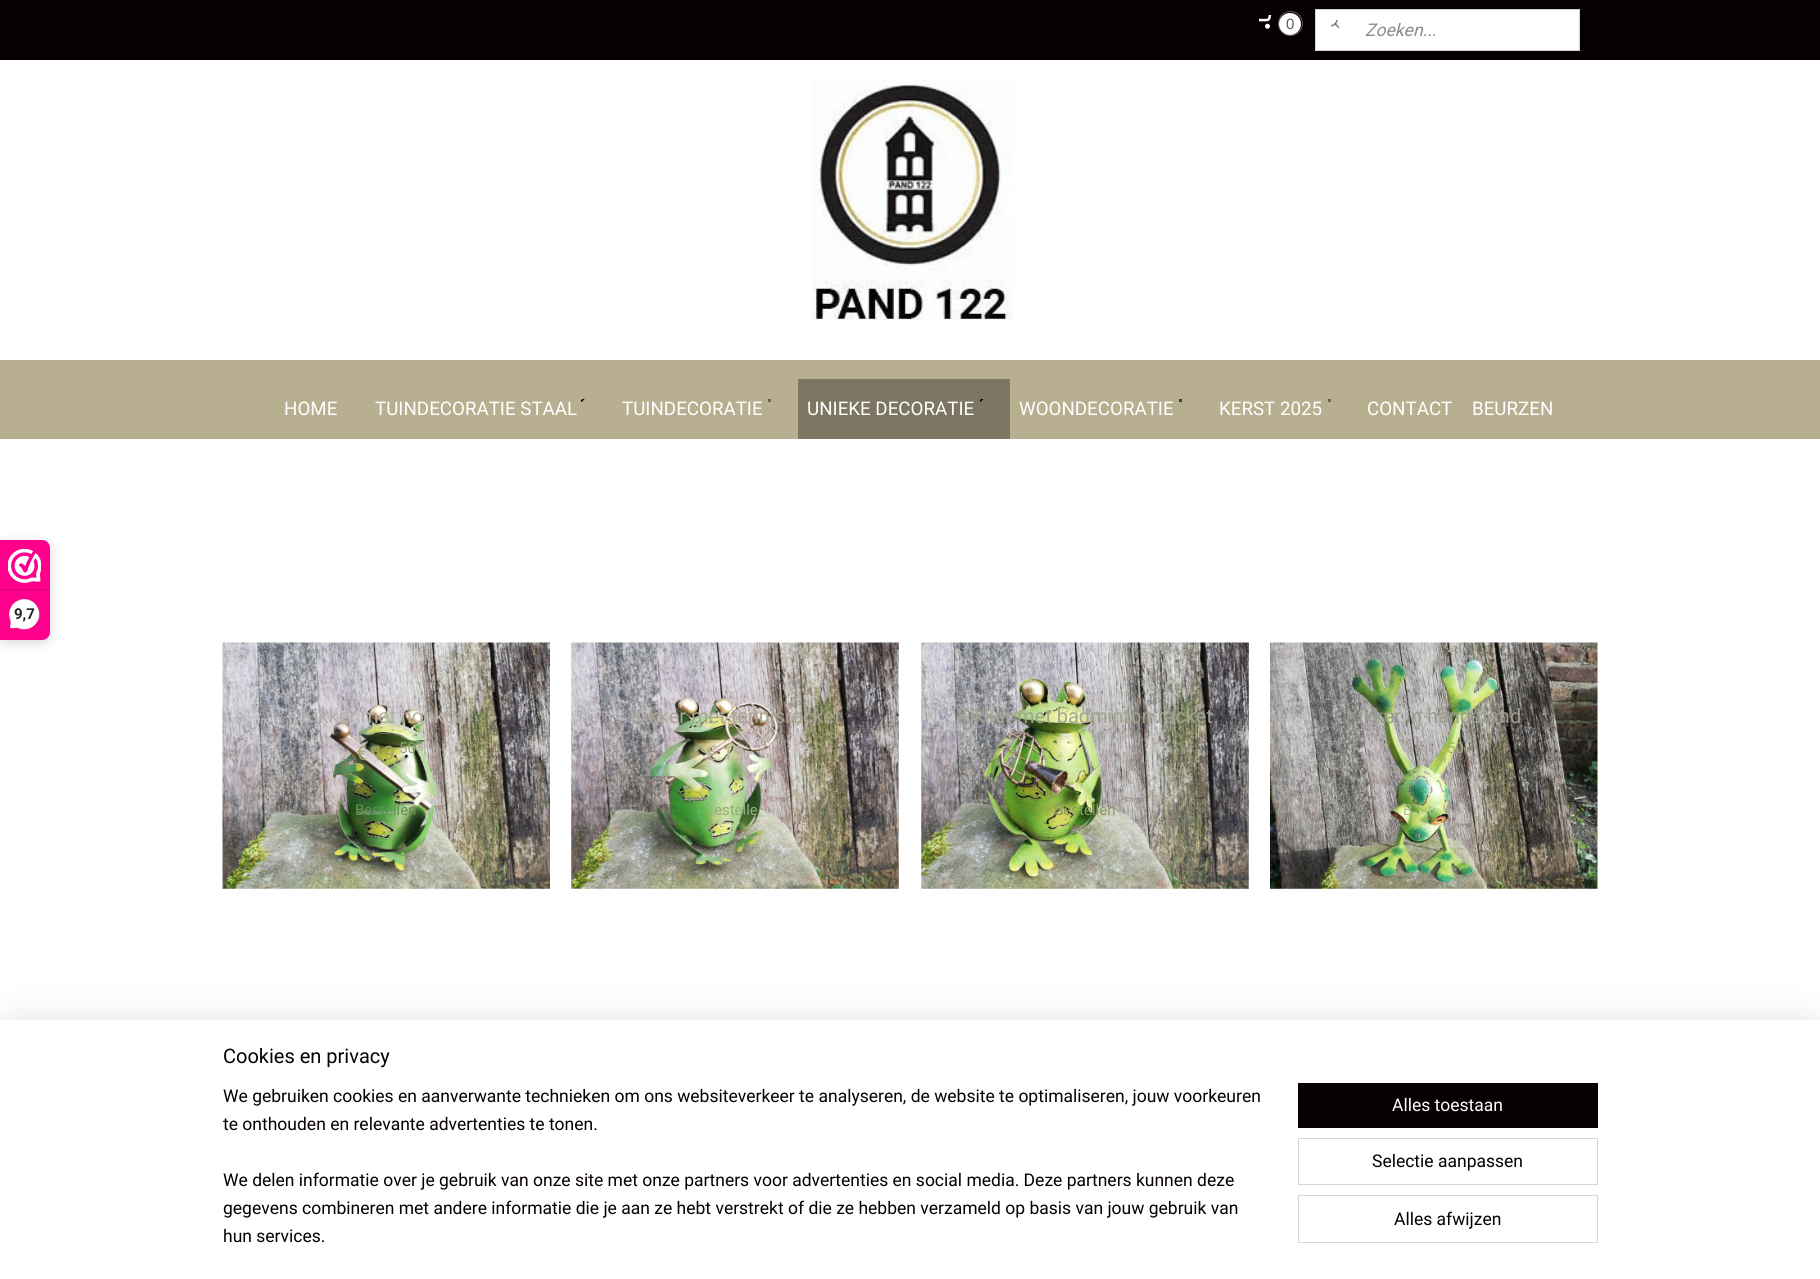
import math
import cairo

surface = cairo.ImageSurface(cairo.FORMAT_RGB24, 1820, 1279)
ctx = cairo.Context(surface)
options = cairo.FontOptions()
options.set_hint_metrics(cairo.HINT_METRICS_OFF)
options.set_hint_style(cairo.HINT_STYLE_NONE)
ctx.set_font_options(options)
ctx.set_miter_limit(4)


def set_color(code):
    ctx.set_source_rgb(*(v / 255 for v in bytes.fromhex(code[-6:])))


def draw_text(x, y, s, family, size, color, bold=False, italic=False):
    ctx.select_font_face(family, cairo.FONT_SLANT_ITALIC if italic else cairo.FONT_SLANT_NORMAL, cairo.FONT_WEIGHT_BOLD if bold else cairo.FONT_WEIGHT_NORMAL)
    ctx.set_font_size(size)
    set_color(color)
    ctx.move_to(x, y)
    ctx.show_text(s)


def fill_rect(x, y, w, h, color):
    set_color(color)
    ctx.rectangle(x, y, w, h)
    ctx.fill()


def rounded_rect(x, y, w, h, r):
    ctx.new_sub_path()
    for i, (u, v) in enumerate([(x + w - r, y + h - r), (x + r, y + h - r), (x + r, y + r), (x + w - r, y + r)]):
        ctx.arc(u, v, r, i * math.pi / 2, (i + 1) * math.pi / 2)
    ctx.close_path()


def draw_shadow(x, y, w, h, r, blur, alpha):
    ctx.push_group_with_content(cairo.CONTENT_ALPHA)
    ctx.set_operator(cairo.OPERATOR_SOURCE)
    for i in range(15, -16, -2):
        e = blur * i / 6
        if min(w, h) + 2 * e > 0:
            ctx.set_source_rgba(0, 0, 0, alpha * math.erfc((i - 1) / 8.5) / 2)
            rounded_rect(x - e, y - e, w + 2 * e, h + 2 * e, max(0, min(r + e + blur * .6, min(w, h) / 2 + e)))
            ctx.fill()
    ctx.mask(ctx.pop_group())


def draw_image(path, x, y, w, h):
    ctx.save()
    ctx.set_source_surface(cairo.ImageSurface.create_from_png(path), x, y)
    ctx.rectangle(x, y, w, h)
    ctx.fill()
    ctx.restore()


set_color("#ffffff")
ctx.paint()
set_color("#000000")
draw_shadow(0, 543, 50, 100, 8, 6, 0.15)
set_color("#fe008c")
ctx.new_path()
ctx.move_to(0, 540)
ctx.line_to(42, 540)
ctx.curve_to(46.5, 540, 50, 543.5, 50, 548)
ctx.line_to(50, 632)
ctx.curve_to(50, 636.5, 46.5, 640, 42, 640)
ctx.line_to(0, 640)
ctx.close_path()
ctx.fill()
draw_image("assets/img1.png", 8, 549, 33, 34)
fill_rect(0, 589, 49, 1, "#d80077")
draw_image("assets/img2.png", 9, 599, 31, 31)
draw_text(14, 619, "9,7", "Roboto", 15, "#272626", bold=True)
fill_rect(0, 0, 1820, 60, "#070000")
draw_image("assets/img3.png", 1259, 15, 13, 14)
ctx.arc(1290.5, 23.5, 12, 0, 2 * math.pi)
set_color("#575b62")
ctx.set_line_width(1)
ctx.stroke()
set_color("#ffffff")
ctx.arc(1290, 24, 11, 0, 2 * math.pi)
ctx.fill()
draw_text(1286, 29, "0", "Liberation Sans", 15, "#575b62")
set_color("#ffffff")
ctx.rectangle(1315.5, 9.5, 264, 41)
ctx.fill_preserve()
set_color("#d3d5d9")
ctx.stroke()
draw_image("assets/img4.png", 1331, 20, 9, 9)
draw_text(1365, 36, "Zoeken...", "Roboto", 17.5, "#898c91", italic=True)
draw_image("assets/img5.png", 812, 80, 201, 241)
fill_rect(0, 360, 1820, 79, "#b8af91")
draw_text(284, 415, "HOME", "Roboto", 18.75, "#ffffff")
draw_image("assets/img6.png", 581, 399, 4, 3)
draw_text(375, 415, "TUINDECORATIE STAAL", "Roboto", 18.75, "#ffffff")
fill_rect(768, 399, 3, 3, "#696453")
draw_text(622, 415, "TUINDECORATIE", "Roboto", 18.75, "#ffffff")
fill_rect(798, 379, 212, 60, "#7c7662")
draw_image("assets/img7.png", 980, 399, 4, 3)
draw_text(807, 415, "UNIEKE DECORATIE", "Roboto", 18.75, "#ffffff")
fill_rect(1179, 399, 3, 3, "#3f3c31")
draw_text(1019, 415, "WOONDECORATIE", "Roboto", 18.75, "#ffffff")
fill_rect(1328, 399, 3, 3, "#696453")
draw_text(1219, 415, "KERST 2025", "Roboto", 18.75, "#ffffff")
draw_text(1367, 415, "CONTACT", "Roboto", 18.75, "#ffffff")
draw_text(1472, 415, "BEURZEN", "Roboto", 18.75, "#ffffff")
draw_image("assets/img8.png", 222, 642, 328, 247)
draw_text(301, 723, "Kikker met honkbal", "Roboto", 20, "#b4aea7")
draw_text(356, 760, "€ 19,", "Roboto", 20, "#a2a366")
draw_text(399, 753, "50", "Roboto", 15, "#95a47d")
draw_text(355, 815, "Bestellen", "Roboto", 15, "#609354")
draw_image("assets/img9.png", 571, 642, 328, 247)
draw_text(631, 723, "Kikker met tennisracket", "Roboto", 20, "#a9a595")
draw_text(706, 760, "€ 19", "Roboto", 20, "#bab59c")
draw_text(714, 815, "estelle", "Roboto", 15, "#90b178")
draw_image("assets/img10.png", 921, 642, 328, 247)
draw_text(957, 723, "Kikker met badminton racket", "Roboto", 20, "#a1a58f")
draw_text(1054, 815, "Bestellen", "Roboto", 15, "#8a9d5d")
draw_image("assets/img11.png", 1270, 642, 328, 247)
draw_text(1346, 723, "Kikker in handstand", "Roboto", 20, "#999b8d")
draw_text(1447, 753, "50", "Roboto", 15, "#a2ab75")
draw_text(1443, 760, ",", "Roboto", 20, "#b3b4a5")
draw_text(1403, 815, "B", "Roboto", 15, "#aec288")
draw_text(1428, 815, "t", "Roboto", 15, "#aec288")
set_color("#000000")
draw_shadow(13, 1033, 1795, 235, 0, 22.5, 0.2)
fill_rect(0, 1020, 1820, 259, "#ffffff")
draw_text(223, 1063, "Cookies en privacy", "Roboto", 20, "#070000")
draw_text(223, 1102, "We gebruiken cookies en aanverwante technieken om ons websiteverkeer te analyseren, de website te optimaliseren, jouw voorkeuren", "Roboto", 17.5, "#070000")
draw_text(223, 1130, "te onthouden en relevante advertenties te tonen.", "Roboto", 17.5, "#070000")
draw_text(223, 1186, "We delen informatie over je gebruik van onze site met onze partners voor advertenties en social media. Deze partners kunnen deze", "Roboto", 17.5, "#070000")
draw_text(223, 1214, "gegevens combineren met andere informatie die je aan ze hebt verstrekt of die ze hebben verzameld op basis van jouw gebruik van", "Roboto", 17.5, "#070000")
draw_text(223, 1242, "hun services.", "Roboto", 17.5, "#070000")
fill_rect(1298, 1083, 300, 45, "#070000")
draw_text(1392, 1111, "Alles toestaan", "Roboto", 17.5, "#ffffff")
ctx.rectangle(1298.5, 1138.5, 299, 46)
set_color("#d6d6d6")
ctx.stroke()
draw_text(1372, 1167, "Selectie aanpassen", "Roboto", 17.5, "#070000")
ctx.rectangle(1298.5, 1195.5, 299, 47)
set_color("#d6d6d6")
ctx.stroke()
draw_text(1394, 1225, "Alles afwijzen", "Roboto", 17.5, "#070000")
surface.write_to_png("output.png")
